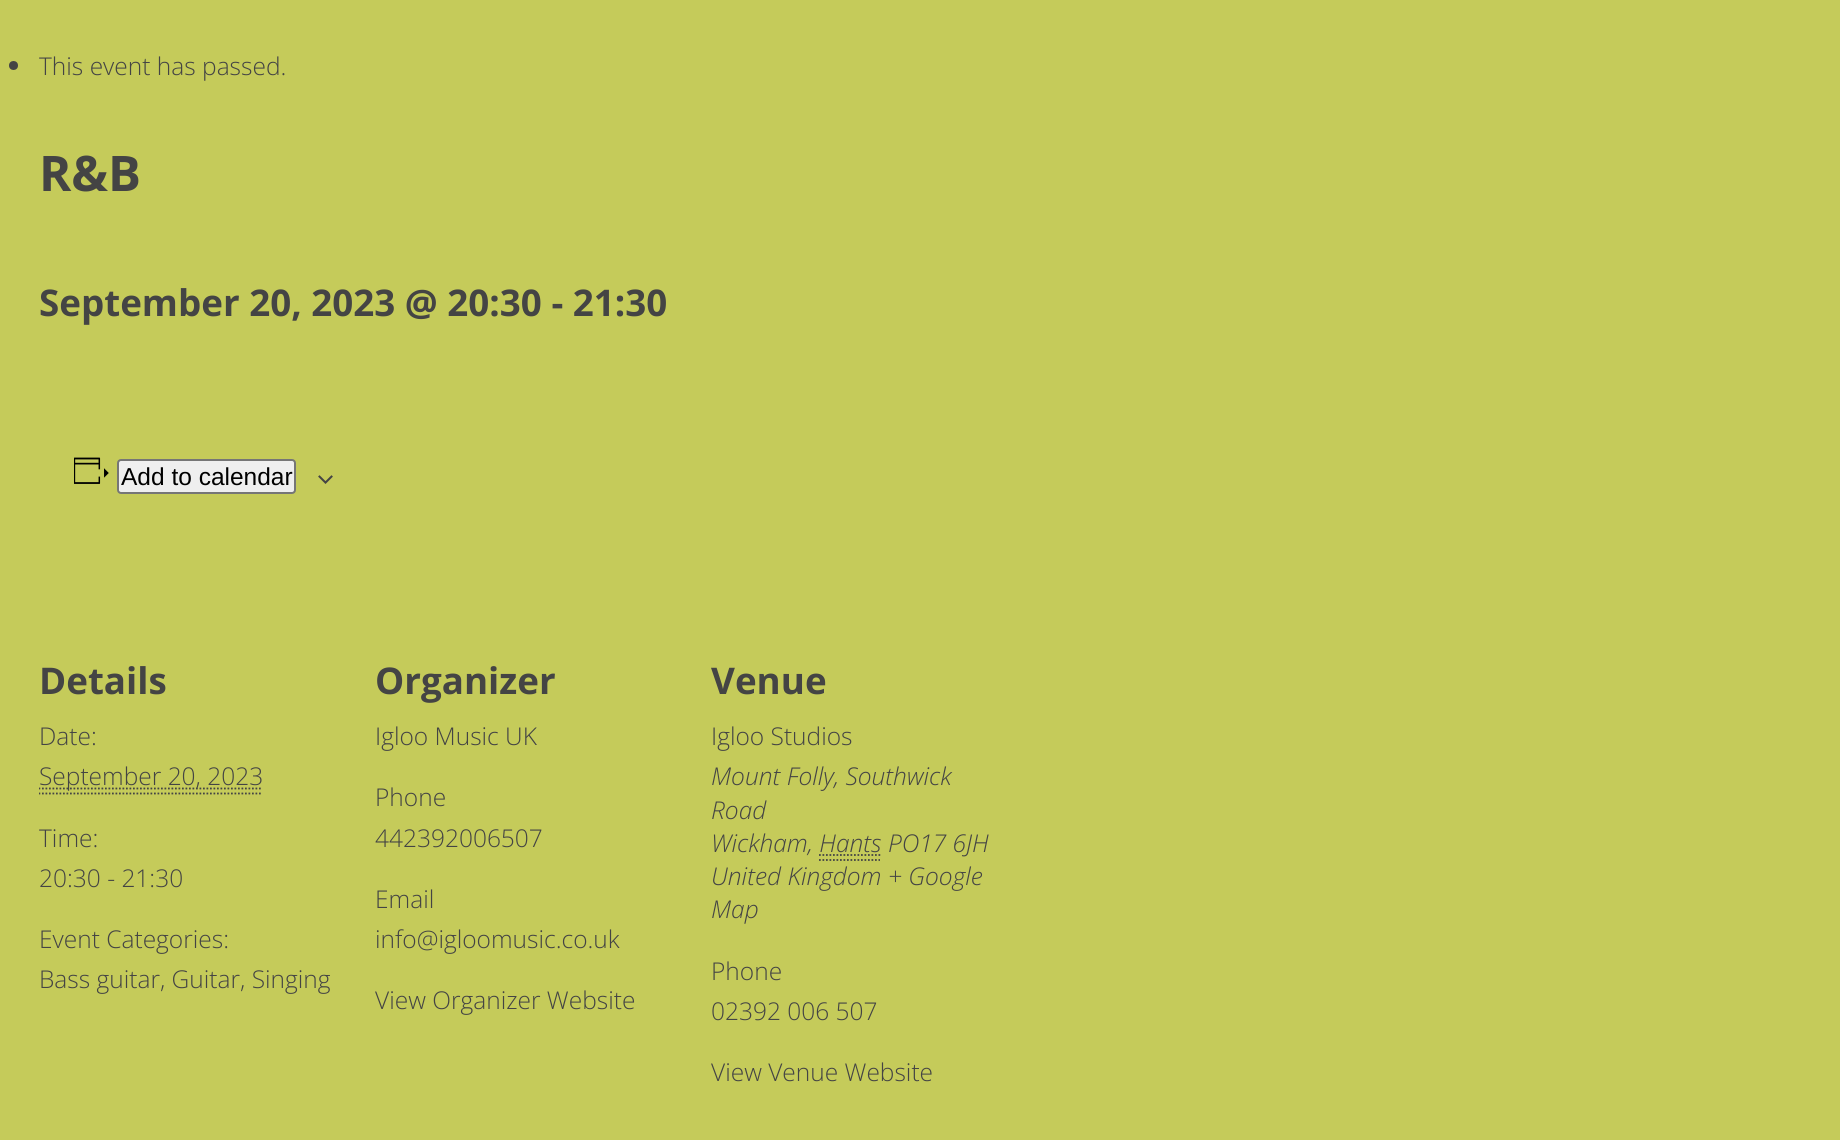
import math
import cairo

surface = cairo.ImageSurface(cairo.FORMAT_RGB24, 1840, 1140)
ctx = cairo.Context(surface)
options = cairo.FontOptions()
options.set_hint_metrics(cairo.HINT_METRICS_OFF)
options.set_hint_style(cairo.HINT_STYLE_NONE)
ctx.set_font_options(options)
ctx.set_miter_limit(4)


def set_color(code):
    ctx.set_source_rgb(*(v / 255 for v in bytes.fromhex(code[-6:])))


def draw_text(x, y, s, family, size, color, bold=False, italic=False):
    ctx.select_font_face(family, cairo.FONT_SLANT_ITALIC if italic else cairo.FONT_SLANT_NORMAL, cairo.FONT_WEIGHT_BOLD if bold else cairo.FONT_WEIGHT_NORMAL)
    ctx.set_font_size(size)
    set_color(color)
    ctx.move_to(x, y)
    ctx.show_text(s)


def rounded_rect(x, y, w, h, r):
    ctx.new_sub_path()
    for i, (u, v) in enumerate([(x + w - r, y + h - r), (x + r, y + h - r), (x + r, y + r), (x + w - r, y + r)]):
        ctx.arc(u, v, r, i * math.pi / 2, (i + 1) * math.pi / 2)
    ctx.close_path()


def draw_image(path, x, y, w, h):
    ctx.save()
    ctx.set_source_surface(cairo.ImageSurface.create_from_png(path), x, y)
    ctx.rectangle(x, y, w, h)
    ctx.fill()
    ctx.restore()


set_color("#c5cb5a")
ctx.paint()
set_color("#444444")
ctx.arc(13.5, 65.5, 4.5, 0, 2 * math.pi)
ctx.fill()
draw_text(39, 75, "This event has passed.", "Open Sans Light", 24.5, "#444444")
draw_text(39, 191, "R&B", "Open Sans", 49, "#444444", bold=True)
draw_text(39, 316, "September 20, 2023 @ 20:30 - 21:30", "Open Sans", 36.75, "#444444", bold=True)
draw_image("assets/img1.png", 74, 457, 35, 27)
set_color("#efefef")
rounded_rect(118, 460, 177, 33, 3)
ctx.fill_preserve()
set_color("#767676")
ctx.stroke()
draw_text(121, 485, "Add to calendar", "Liberation Sans", 24.5, "#000000")
draw_image("assets/img2.png", 318, 475, 15, 9)
draw_text(39, 694, "Details", "Open Sans", 36.75, "#444444", bold=True)
draw_text(39, 745, "Date:", "Open Sans Light", 24.5, "#444444")
ctx.save()
ctx.rectangle(39, 382, 1764, 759)
ctx.clip()
ctx.new_path()
ctx.move_to(38.5, 788.5)
ctx.line_to(262.5, 788.5)
ctx.set_line_width(1.8)
ctx.set_dash([1.75, 1.75])
ctx.stroke()
ctx.restore()
draw_text(39, 785, "September 20, 2023", "Open Sans Light", 24.5, "#444444")
ctx.save()
ctx.rectangle(39, 382, 1764, 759)
ctx.clip()
ctx.new_path()
ctx.move_to(38.5, 793.5)
ctx.line_to(262.5, 793.5)
ctx.set_line_width(1.8)
ctx.set_dash([1.75, 1.75])
ctx.stroke()
ctx.restore()
draw_text(39, 847, "Time:", "Open Sans Light", 24.5, "#444444")
draw_text(39, 887, "20:30 - 21:30", "Open Sans Light", 24.5, "#444444")
draw_text(39, 948, "Event Categories:", "Open Sans Light", 24.5, "#444444")
draw_text(39, 988, "Bass guitar, Guitar, Singing", "Open Sans Light", 24.5, "#444444")
draw_text(375, 694, "Organizer", "Open Sans", 36.75, "#444444", bold=True)
draw_text(375, 745, "Igloo Music UK", "Open Sans Light", 24.5, "#444444")
draw_text(375, 806, "Phone", "Open Sans Light", 24.5, "#444444")
draw_text(375, 847, "442392006507", "Open Sans Light", 24.5, "#444444")
draw_text(375, 908, "Email", "Open Sans Light", 24.5, "#444444")
draw_text(375, 948, "info@igloomusic.co.uk", "Open Sans Light", 24.5, "#444444")
draw_text(375, 1009, "View Organizer Website", "Open Sans Light", 24.5, "#444444")
draw_text(711, 694, "Venue", "Open Sans", 36.75, "#444444", bold=True)
draw_text(711, 745, "Igloo Studios", "Open Sans Light", 24.5, "#444444")
draw_text(711, 785, "Mount Folly, Southwick", "Open Sans Light", 24.5, "#444444", italic=True)
draw_text(711, 819, "Road", "Open Sans Light", 24.5, "#444444", italic=True)
draw_text(711, 852, "Wickham, Hants PO17 6JH", "Open Sans Light", 24.5, "#444444", italic=True)
ctx.new_path()
ctx.move_to(819, 860)
ctx.line_to(880, 860)
ctx.move_to(819, 855)
ctx.line_to(881, 855)
ctx.set_line_width(1.8)
ctx.set_dash([1.75, 1.75])
ctx.stroke()
draw_text(711, 885, "United Kingdom + Google", "Open Sans Light", 24.5, "#444444", italic=True)
draw_text(711, 918, "Map", "Open Sans Light", 24.5, "#444444", italic=True)
draw_text(711, 980, "Phone", "Open Sans Light", 24.5, "#444444")
draw_text(711, 1020, "02392 006 507", "Open Sans Light", 24.5, "#444444")
draw_text(711, 1081, "View Venue Website", "Open Sans Light", 24.5, "#444444")
surface.write_to_png("output.png")
